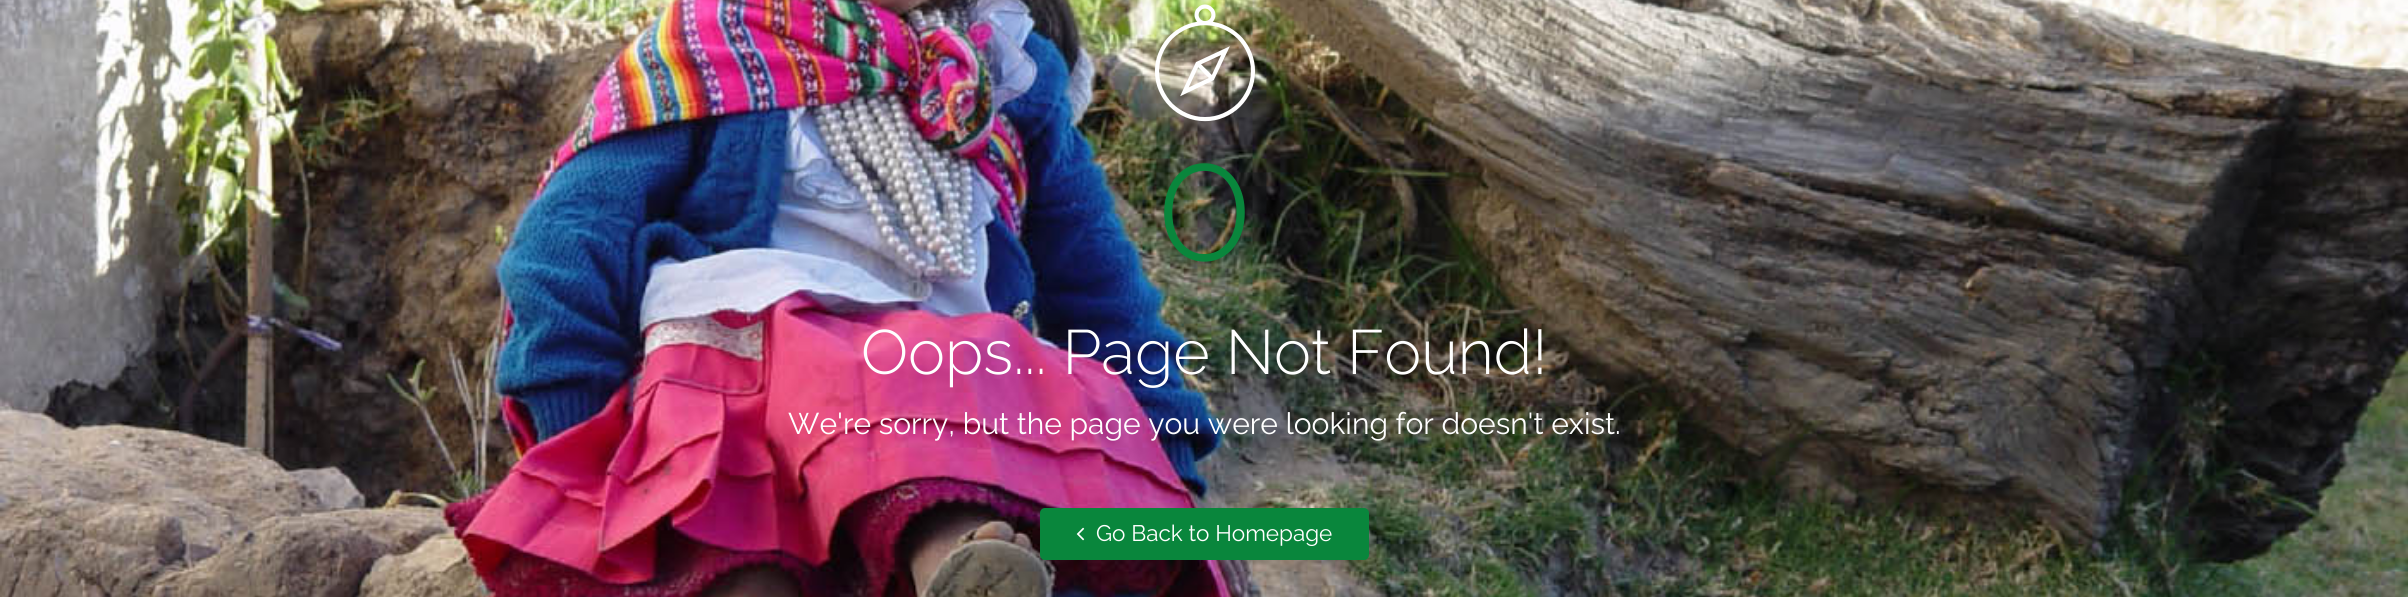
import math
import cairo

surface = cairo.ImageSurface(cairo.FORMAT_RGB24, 2408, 597)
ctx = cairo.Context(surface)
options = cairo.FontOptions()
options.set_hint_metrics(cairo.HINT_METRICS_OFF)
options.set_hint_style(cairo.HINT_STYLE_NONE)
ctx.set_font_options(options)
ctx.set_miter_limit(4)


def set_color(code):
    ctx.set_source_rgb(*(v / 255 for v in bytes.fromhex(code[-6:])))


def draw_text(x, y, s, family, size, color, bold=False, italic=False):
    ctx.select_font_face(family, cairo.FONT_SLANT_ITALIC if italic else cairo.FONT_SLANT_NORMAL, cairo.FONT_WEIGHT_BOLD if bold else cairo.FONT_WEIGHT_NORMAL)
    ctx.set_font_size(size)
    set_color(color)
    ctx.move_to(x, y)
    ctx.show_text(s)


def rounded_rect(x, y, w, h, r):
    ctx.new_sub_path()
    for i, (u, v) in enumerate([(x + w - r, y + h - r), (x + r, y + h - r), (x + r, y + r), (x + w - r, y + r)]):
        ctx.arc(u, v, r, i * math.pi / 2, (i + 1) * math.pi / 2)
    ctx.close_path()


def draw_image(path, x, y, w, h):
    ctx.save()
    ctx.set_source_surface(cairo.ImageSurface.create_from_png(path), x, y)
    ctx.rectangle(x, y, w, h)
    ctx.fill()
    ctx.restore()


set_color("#ffffff")
ctx.paint()
draw_image("assets/img1.png", 0, 0, 2408, 597)
draw_image("assets/img2.png", 1155, 4, 101, 118)
draw_text(1155, 260, "0", "Raleway Light", 162, "#09863c")
draw_text(861, 374, "Oops... Page Not Found!", "Raleway Light", 62.5, "#ffffff")
draw_text(788, 434, "We're sorry, but the page you were looking for doesn't exist.", "Raleway", 30, "#ffffff")
set_color("#09863c")
rounded_rect(1040, 508, 329, 52, 5)
ctx.fill()
draw_image("assets/img3.png", 1076, 527, 9, 14)
draw_text(1096, 541, "Go Back to Homepage", "Raleway", 22.5, "#ffffff")
surface.write_to_png("output.png")
